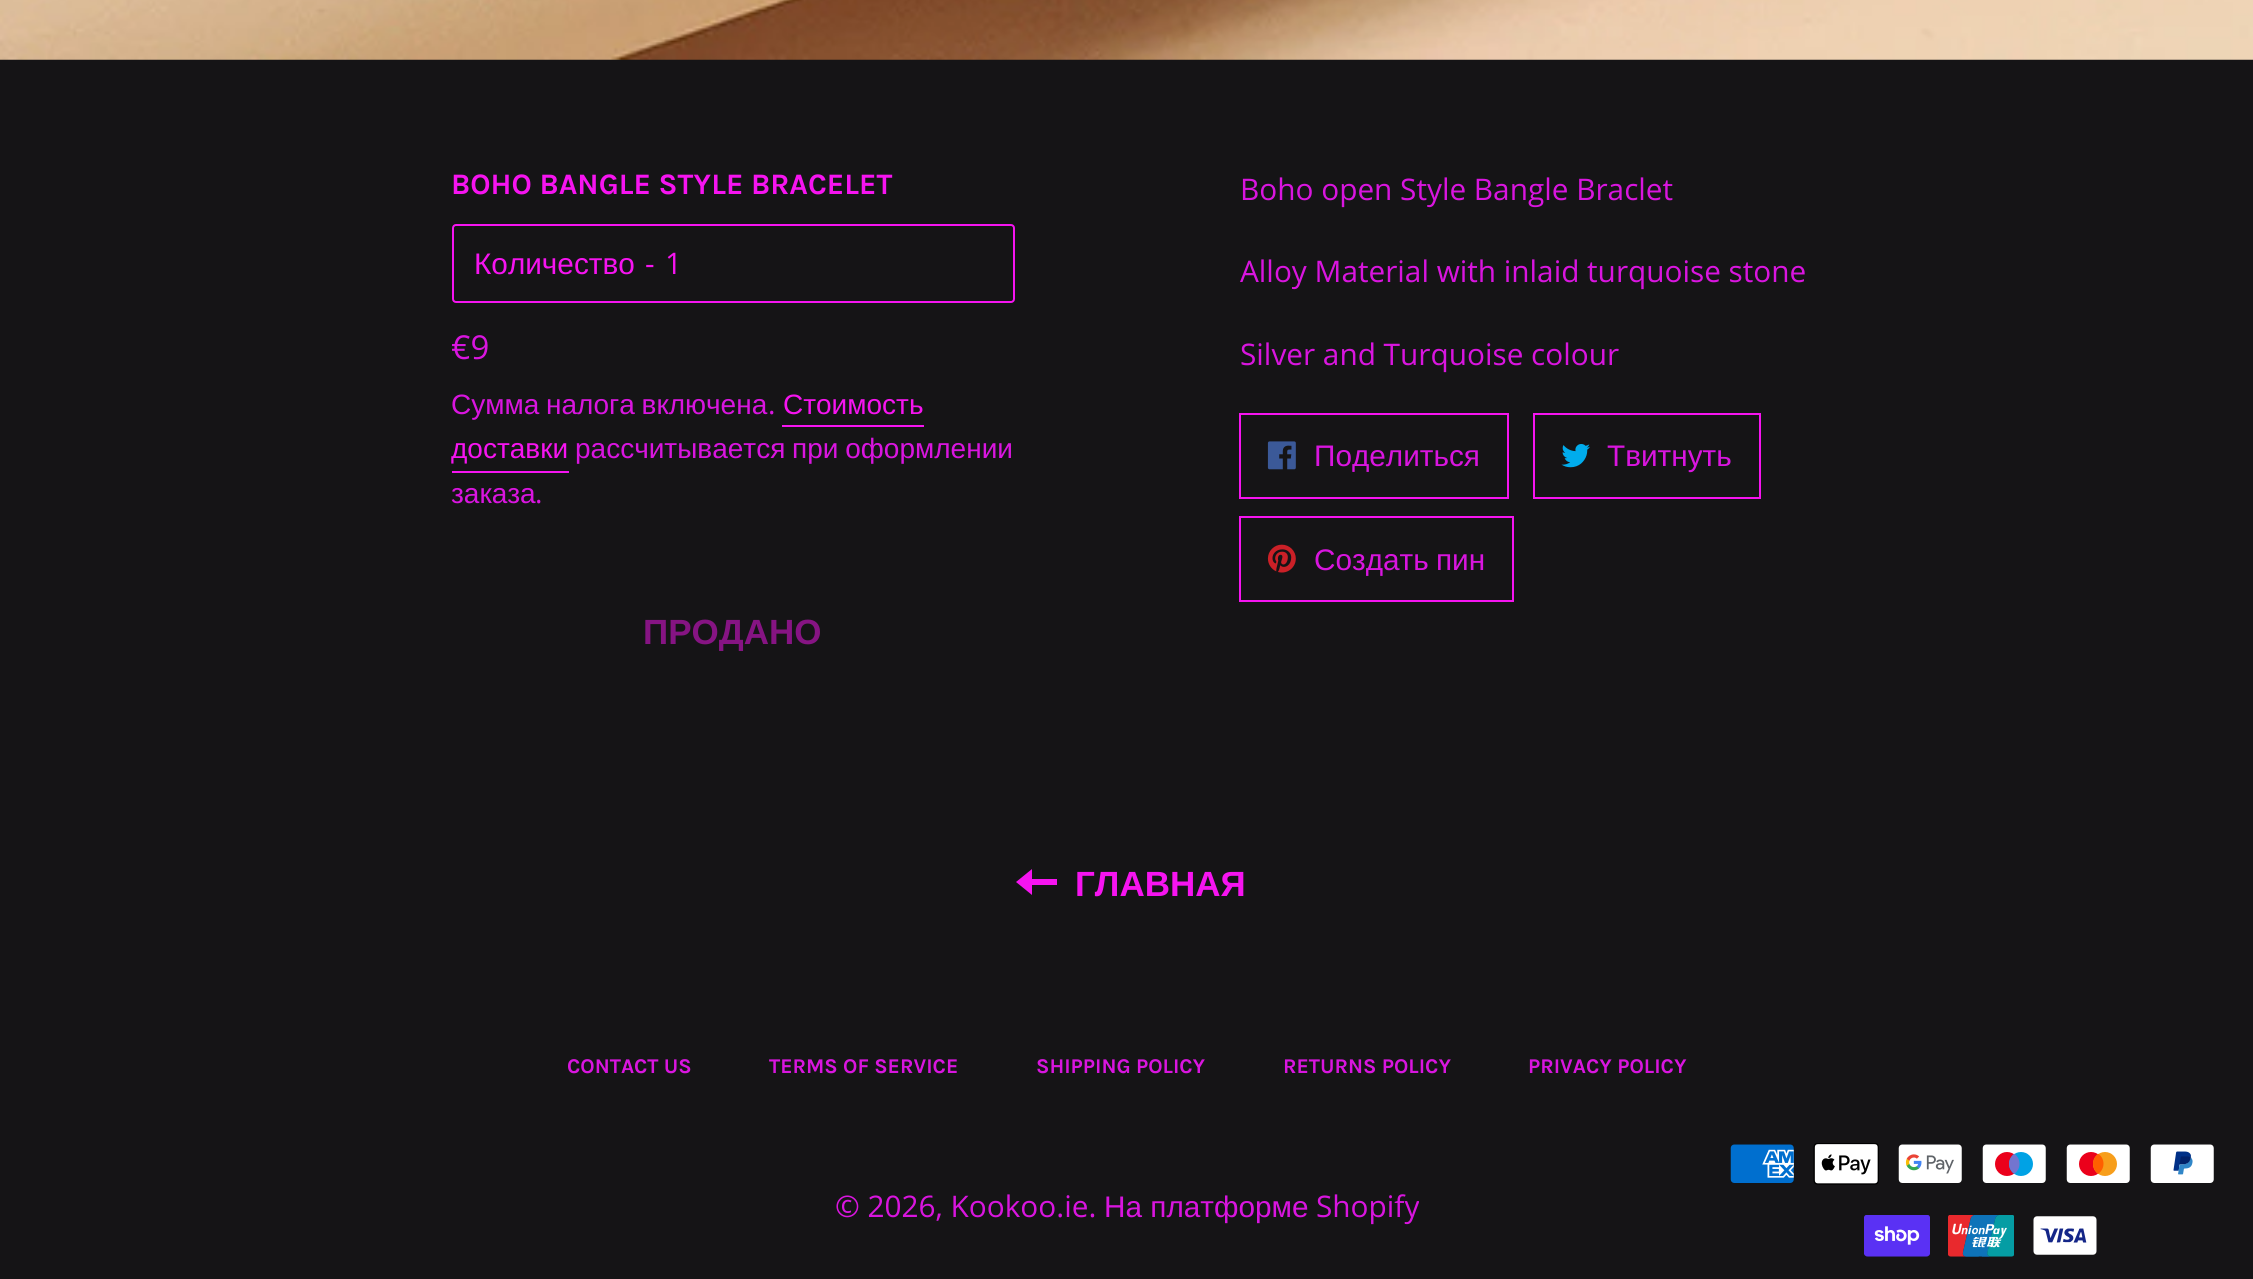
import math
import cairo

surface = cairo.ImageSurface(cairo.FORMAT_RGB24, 2253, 1279)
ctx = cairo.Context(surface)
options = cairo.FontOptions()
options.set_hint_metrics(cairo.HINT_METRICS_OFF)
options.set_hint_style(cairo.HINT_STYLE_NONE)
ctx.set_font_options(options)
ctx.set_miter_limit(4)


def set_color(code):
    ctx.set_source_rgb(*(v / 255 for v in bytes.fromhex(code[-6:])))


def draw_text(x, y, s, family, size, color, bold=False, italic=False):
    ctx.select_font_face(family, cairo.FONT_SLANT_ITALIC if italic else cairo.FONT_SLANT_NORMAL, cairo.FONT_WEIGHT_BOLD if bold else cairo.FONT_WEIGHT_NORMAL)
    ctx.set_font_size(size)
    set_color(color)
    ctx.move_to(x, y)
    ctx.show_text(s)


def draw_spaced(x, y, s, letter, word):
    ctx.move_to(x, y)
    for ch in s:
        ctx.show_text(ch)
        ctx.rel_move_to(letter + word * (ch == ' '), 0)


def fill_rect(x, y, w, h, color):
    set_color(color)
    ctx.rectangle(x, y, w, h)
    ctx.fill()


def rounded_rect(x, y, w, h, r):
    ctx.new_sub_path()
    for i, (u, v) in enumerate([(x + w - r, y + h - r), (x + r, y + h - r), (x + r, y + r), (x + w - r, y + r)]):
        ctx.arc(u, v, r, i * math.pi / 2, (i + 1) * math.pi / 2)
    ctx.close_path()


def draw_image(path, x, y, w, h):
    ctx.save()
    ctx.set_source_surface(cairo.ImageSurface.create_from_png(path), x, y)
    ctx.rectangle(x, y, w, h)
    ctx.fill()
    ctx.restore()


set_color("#151416")
ctx.paint()
draw_image("assets/img1.png", 0, 0, 2253, 60)
draw_text(451, 194, "BOHO BANGLE STYLE BRACELET", "Karla", 29.75, "#f614f0", bold=True)
rounded_rect(453, 225, 561, 77, 3)
ctx.stroke()
draw_text(474, 274, "Количество", "Liberation Sans", 29.75, "#f614f0")
draw_text(645, 274, "-", "Open Sans", 29.75, "#f614f0")
draw_text(665, 274, "1", "Open Sans", 29.75, "#f614f0")
draw_text(451, 359, "€9", "Open Sans", 33, "#d915df")
ctx.select_font_face("Liberation Sans")
ctx.set_font_size(28)
draw_spaced(451, 414, "Сумма налога включена", 0, -1)
draw_text(768, 414, ".", "Open Sans", 28, "#d915df")
draw_text(783, 414, "Стоимость", "Liberation Sans", 28, "#f614f0")
fill_rect(782, 425, 142, 2, "#f614f0")
draw_text(451, 458, "доставки", "Liberation Sans", 28, "#f614f0")
fill_rect(452, 471, 117, 2, "#f614f0")
set_color("#d915df")
draw_spaced(575, 458, "рассчитывается при оформлении", 0, -1)
draw_text(451, 503, "заказа", "Liberation Sans", 28, "#d915df")
draw_text(535, 503, ".", "Open Sans", 28, "#d915df")
draw_text(643, 644, "ПРОДАНО", "Liberation Sans", 35, "#861483", bold=True)
draw_text(1240, 200, "Boho open Style Bangle Braclet", "Open Sans", 29.75, "#d915df")
draw_text(1240, 282, "Alloy Material with inlaid turquoise stone", "Open Sans", 29.75, "#d915df")
draw_text(1240, 365, "Silver and Turquoise colour", "Open Sans", 29.75, "#d915df")
ctx.rectangle(1240, 414, 268, 84)
set_color("#f614f0")
ctx.stroke()
draw_image("assets/img2.png", 1267, 441, 29, 29)
draw_text(1314, 466, "Поделиться", "Liberation Sans", 29.75, "#d915df")
ctx.rectangle(1534, 414, 226, 84)
set_color("#f614f0")
ctx.stroke()
draw_image("assets/img3.png", 1561, 444, 29, 24)
draw_text(1607, 466, "Твитнуть", "Liberation Sans", 29.75, "#d915df")
ctx.rectangle(1240, 517, 273, 84)
set_color("#f614f0")
ctx.stroke()
draw_image("assets/img4.png", 1267, 544, 29, 29)
set_color("#d915df")
draw_spaced(1314, 570, "Создать пин", 0, -1)
set_color("#f614f0")
ctx.new_path()
ctx.move_to(1032, 879)
ctx.line_to(1032, 869)
ctx.line_to(1016, 882)
ctx.line_to(1032, 895)
ctx.line_to(1032, 885)
ctx.line_to(1057, 885)
ctx.line_to(1057, 879)
ctx.close_path()
ctx.fill()
draw_text(1075, 896, "ГЛАВНАЯ", "Liberation Sans", 35, "#f614f0", bold=True)
draw_text(567, 1073, "CONTACT US", "Karla", 21, "#d915df", bold=True)
draw_text(769, 1073, "TERMS OF SERVICE", "Karla", 21, "#d915df", bold=True)
draw_text(1036, 1073, "SHIPPING POLICY", "Karla", 21, "#d915df", bold=True)
draw_text(1283, 1073, "RETURNS POLICY", "Karla", 21, "#d915df", bold=True)
draw_text(1528, 1073, "PRIVACY POLICY", "Karla", 21, "#d915df", bold=True)
draw_text(835, 1217, "© 2026, Kookoo.ie.", "Open Sans", 29.75, "#d915df")
draw_text(1104, 1217, "На платформе", "Liberation Sans", 29.75, "#d915df")
draw_text(1316, 1217, "Shopify", "Open Sans", 29.75, "#d915df")
draw_image("assets/img5.png", 1730, 1144, 64, 39)
draw_image("assets/img6.png", 1813, 1143, 66, 42)
draw_image("assets/img7.png", 1898, 1144, 64, 39)
draw_image("assets/img8.png", 1982, 1144, 64, 39)
draw_image("assets/img9.png", 2066, 1144, 64, 39)
draw_image("assets/img10.png", 2150, 1144, 64, 39)
draw_image("assets/img11.png", 1864, 1215, 66, 42)
draw_image("assets/img12.png", 1948, 1215, 66, 42)
draw_image("assets/img13.png", 2033, 1216, 64, 39)
surface.write_to_png("output.png")
